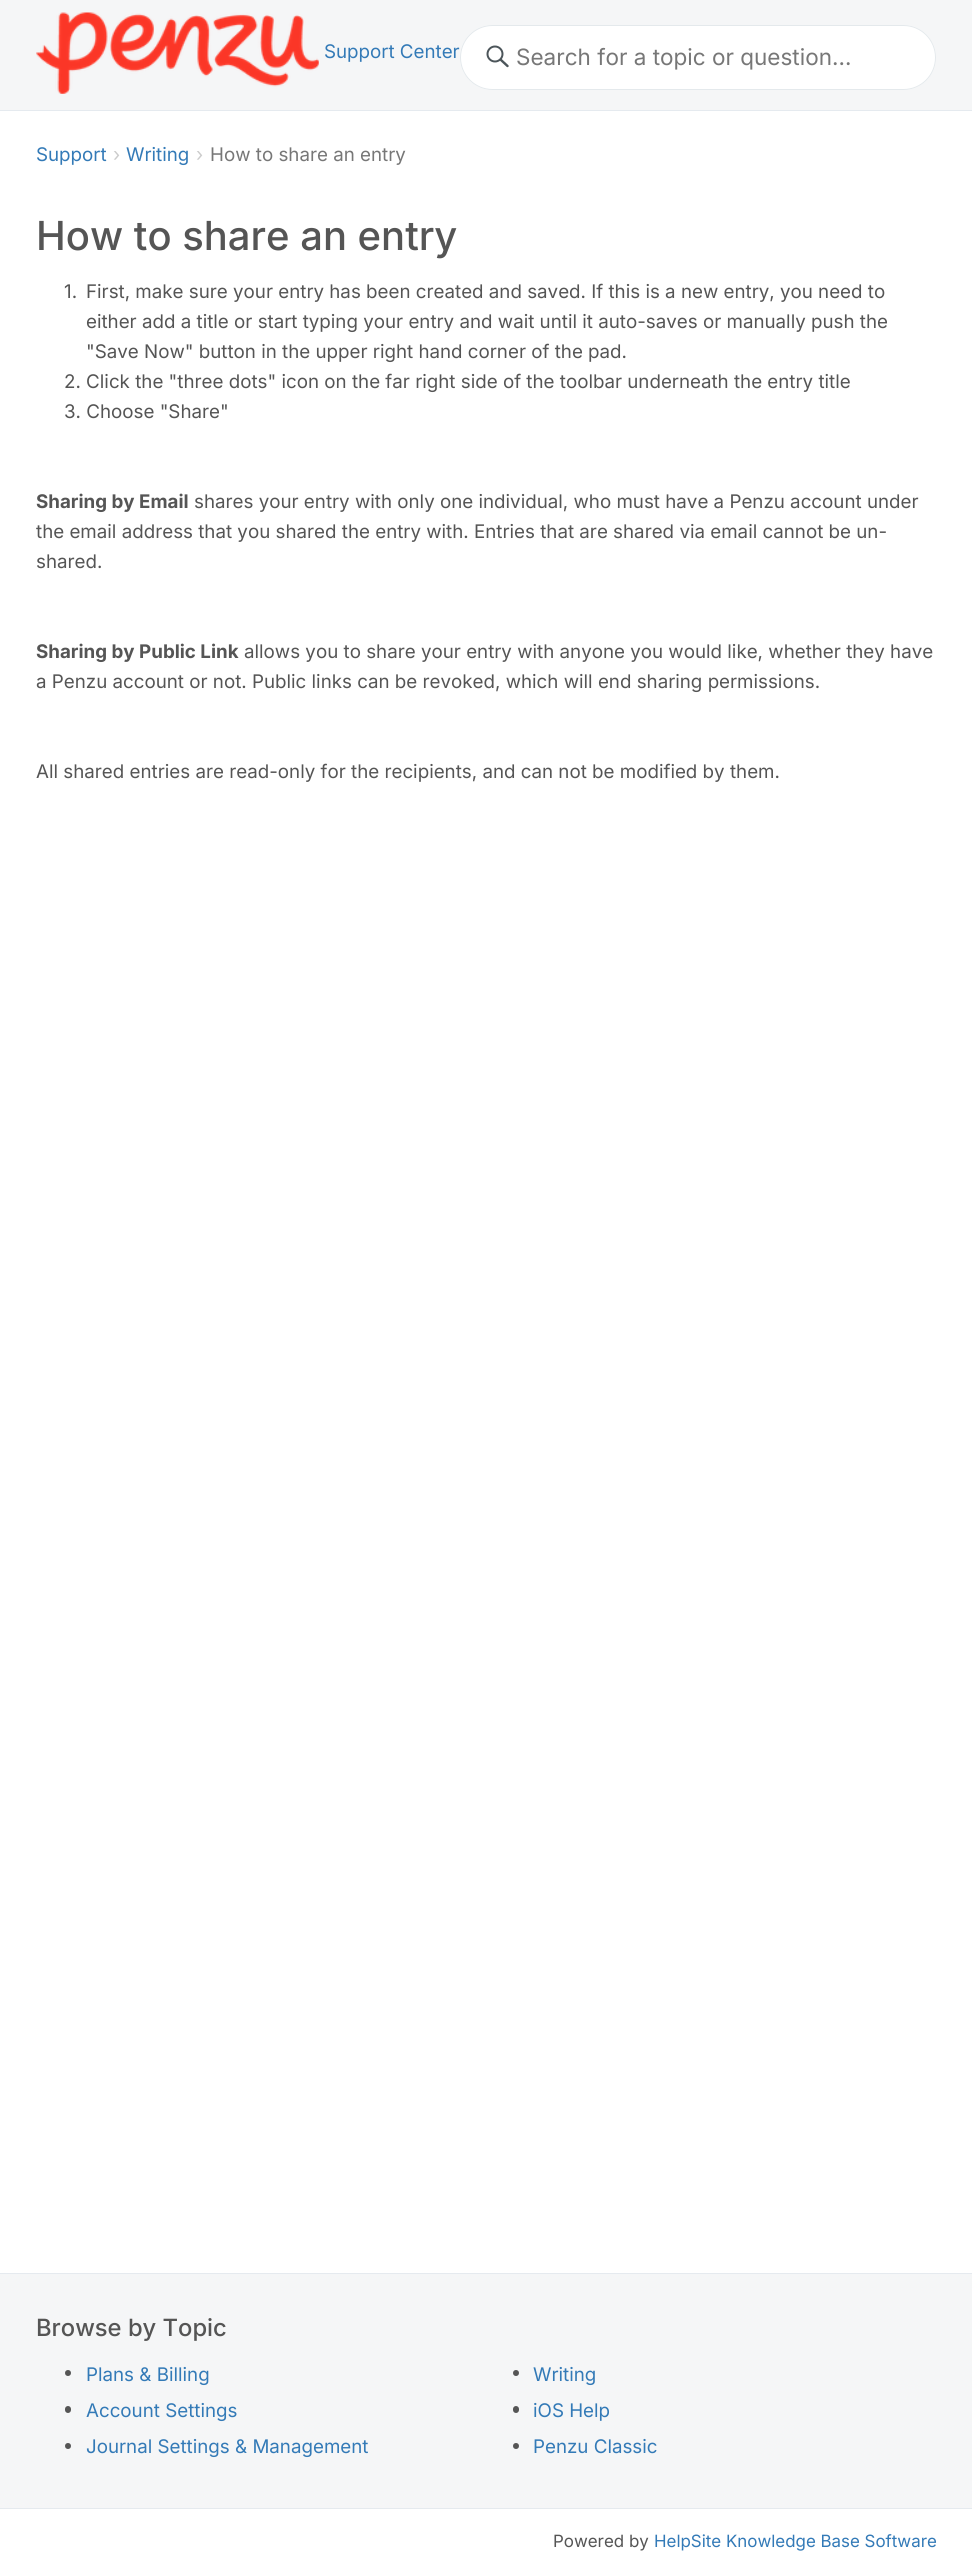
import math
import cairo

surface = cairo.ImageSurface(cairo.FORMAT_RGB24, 972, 2567)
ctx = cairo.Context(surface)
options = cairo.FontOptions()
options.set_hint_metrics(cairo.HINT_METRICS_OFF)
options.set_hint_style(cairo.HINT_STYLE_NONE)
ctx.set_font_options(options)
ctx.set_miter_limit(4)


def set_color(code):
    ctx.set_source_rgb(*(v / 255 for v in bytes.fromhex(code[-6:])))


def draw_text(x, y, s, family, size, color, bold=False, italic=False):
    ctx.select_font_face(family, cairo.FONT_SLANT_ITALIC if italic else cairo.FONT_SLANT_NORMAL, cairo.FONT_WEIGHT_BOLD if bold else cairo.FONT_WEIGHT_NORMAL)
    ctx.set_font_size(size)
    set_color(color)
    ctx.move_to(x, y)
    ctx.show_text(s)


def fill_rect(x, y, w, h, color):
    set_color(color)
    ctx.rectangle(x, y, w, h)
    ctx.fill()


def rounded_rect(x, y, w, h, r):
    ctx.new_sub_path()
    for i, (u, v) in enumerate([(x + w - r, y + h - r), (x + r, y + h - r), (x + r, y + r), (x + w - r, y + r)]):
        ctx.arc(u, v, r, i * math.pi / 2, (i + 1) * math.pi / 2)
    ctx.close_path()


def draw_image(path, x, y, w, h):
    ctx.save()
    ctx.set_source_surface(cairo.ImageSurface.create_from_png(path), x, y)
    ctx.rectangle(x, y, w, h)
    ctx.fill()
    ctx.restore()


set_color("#ffffff")
ctx.paint()
fill_rect(0, 0, 972, 110, "#f5f6f7")
fill_rect(0, 110, 972, 1, "#e5eaef")
draw_image("assets/img1.png", 36, 12, 283, 82)
draw_text(324, 58, "Support Center", "Inter", 18.75, "#337ab7")
set_color("#ffffff")
rounded_rect(460, 25, 476, 65, 32.5)
ctx.fill()
ctx.arc(495, 54, 7.5, 0, 2 * math.pi)
set_color("#4c555a")
ctx.stroke()
ctx.new_path()
ctx.move_to(507.5, 66)
ctx.line_to(501, 60)
ctx.set_line_width(2.4)
ctx.set_line_cap(cairo.LINE_CAP_ROUND)
ctx.stroke()
rounded_rect(460.5, 25.5, 475, 64, 32)
set_color("#e4e9ec")
ctx.set_line_width(1)
ctx.set_line_cap(cairo.LINE_CAP_BUTT)
ctx.stroke()
draw_text(516, 65, "Search for a topic or question…", "Inter", 22.5, "#777777")
draw_text(36, 161, "Support", "Inter", 18.75, "#337ab7")
draw_text(113, 161, "›", "Inter", 18.75, "#cccccc")
draw_text(126, 161, "Writing", "Inter", 18.75, "#337ab7")
draw_text(196, 161, "›", "Inter", 18.75, "#cccccc")
draw_text(210, 161, "How to share an entry", "Inter", 18.75, "#777777")
draw_text(36, 250, "How to share an entry", "Inter Medium", 40, "#555555")
draw_text(64, 298, "1.", "Inter", 18.75, "#555555")
draw_text(86, 298, "First, make sure your entry has been created and saved. If this is a new entry, you need to", "Inter", 18.75, "#555555")
draw_text(86, 328, "either add a title or start typing your entry and wait until it auto-saves or manually push the", "Inter", 18.75, "#555555")
draw_text(86, 358, "\"Save Now\" button in the upper right hand corner of the pad.", "Inter", 18.75, "#555555")
draw_text(64, 388, "2. Click the \"three dots\" icon on the far right side of the toolbar underneath the entry title", "Inter", 18.75, "#555555")
draw_text(64, 418, "3. Choose \"Share\"", "Inter", 18.75, "#555555")
draw_text(36, 508, "Sharing by Email", "Inter", 18.75, "#555555", bold=True)
draw_text(194, 508, "shares your entry with only one individual, who must have a Penzu account under", "Inter", 18.75, "#555555")
draw_text(36, 538, "the email address that you shared the entry with. Entries that are shared via email cannot be un-", "Inter", 18.75, "#555555")
draw_text(36, 568, "shared.", "Inter", 18.75, "#555555")
draw_text(36, 658, "Sharing by Public Link", "Inter", 18.75, "#555555", bold=True)
draw_text(244, 658, "allows you to share your entry with anyone you would like, whether they have", "Inter", 18.75, "#555555")
draw_text(36, 688, "a Penzu account or not. Public links can be revoked, which will end sharing permissions.", "Inter", 18.75, "#555555")
draw_text(36, 778, "All shared entries are read-only for the recipients, and can not be modified by them.", "Inter", 18.75, "#555555")
fill_rect(0, 2274, 972, 234, "#f5f6f7")
fill_rect(0, 2273, 972, 1, "#e5eaef")
fill_rect(0, 2508, 972, 1, "#e5eaef")
draw_text(36, 2336, "Browse by Topic", "Inter Medium", 23.75, "#555555")
ctx.new_path()
ctx.arc(68, 2373, 3, 0, 2 * math.pi)
ctx.fill()
draw_text(86, 2381, "Plans & Billing", "Inter", 18.75, "#337ab7")
set_color("#555555")
ctx.new_path()
ctx.arc(516, 2373, 3, 0, 2 * math.pi)
ctx.fill()
draw_text(533, 2381, "Writing", "Inter", 18.75, "#337ab7")
set_color("#555555")
rounded_rect(65, 2406, 6, 7, 3)
ctx.fill()
draw_text(86, 2417, "Account Settings", "Inter", 18.75, "#337ab7")
set_color("#555555")
rounded_rect(513, 2406, 6, 7, 3)
ctx.fill()
draw_text(533, 2417, "iOS Help", "Inter", 18.75, "#337ab7")
set_color("#555555")
ctx.new_path()
ctx.arc(68, 2446, 3, 0, 2 * math.pi)
ctx.fill()
draw_text(86, 2453, "Journal Settings & Management", "Inter", 18.75, "#337ab7")
set_color("#555555")
ctx.new_path()
ctx.arc(516, 2446, 3, 0, 2 * math.pi)
ctx.fill()
draw_text(533, 2453, "Penzu Classic", "Inter", 18.75, "#337ab7")
draw_text(553, 2547, "Powered by", "Inter", 16.9, "#555555")
draw_text(654, 2547, "HelpSite Knowledge Base Software", "Inter", 16.9, "#337ab7")
surface.write_to_png("output.png")
